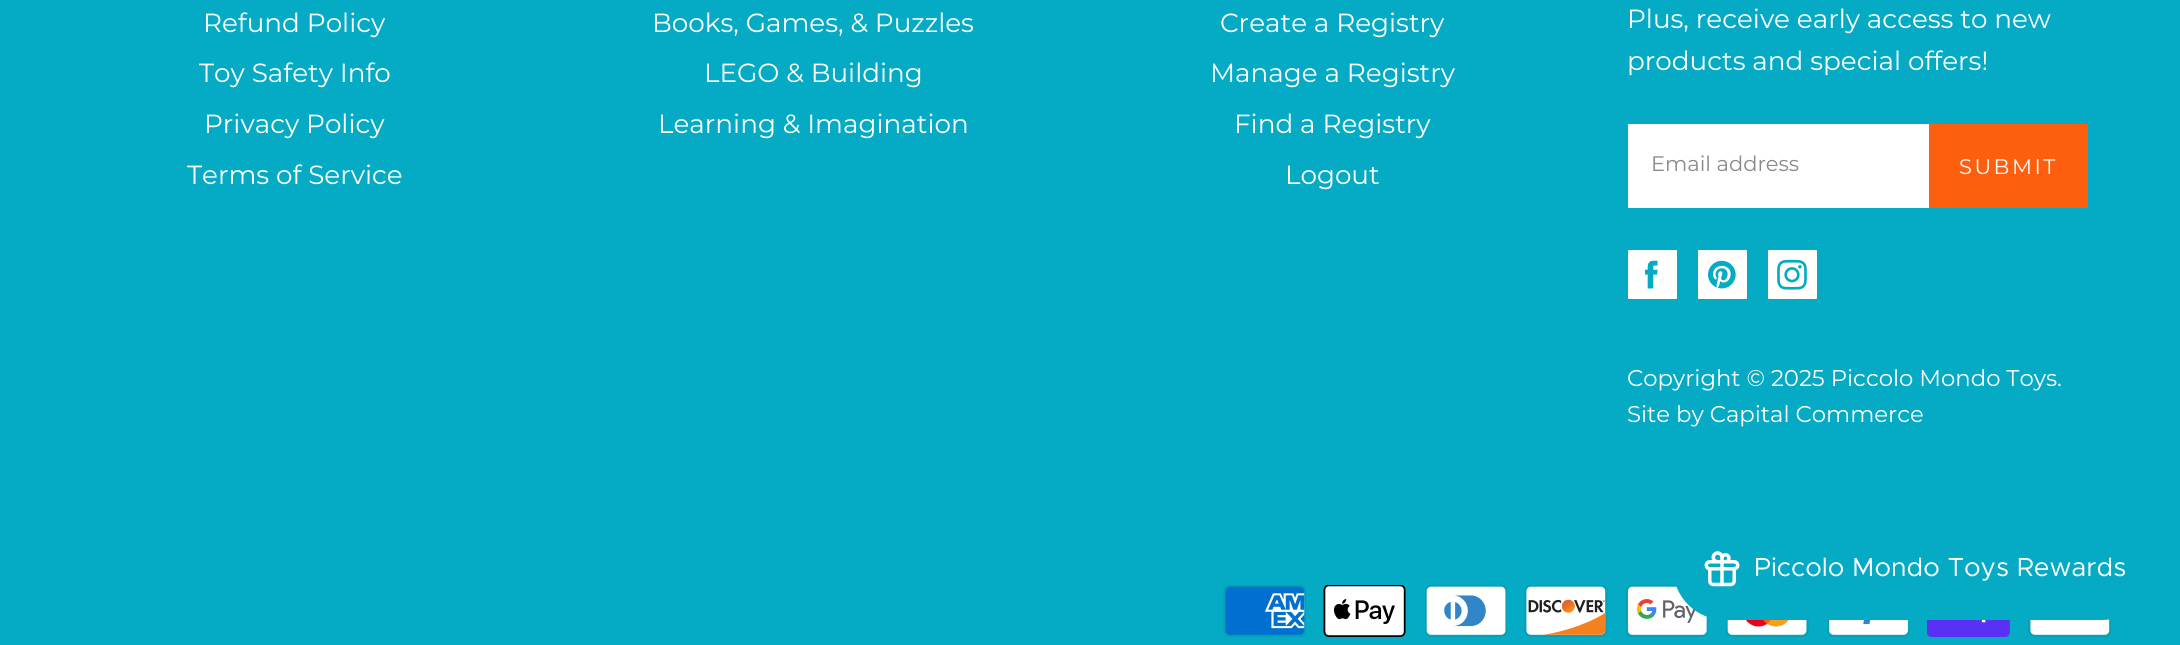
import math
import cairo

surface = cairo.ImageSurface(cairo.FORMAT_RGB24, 2180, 645)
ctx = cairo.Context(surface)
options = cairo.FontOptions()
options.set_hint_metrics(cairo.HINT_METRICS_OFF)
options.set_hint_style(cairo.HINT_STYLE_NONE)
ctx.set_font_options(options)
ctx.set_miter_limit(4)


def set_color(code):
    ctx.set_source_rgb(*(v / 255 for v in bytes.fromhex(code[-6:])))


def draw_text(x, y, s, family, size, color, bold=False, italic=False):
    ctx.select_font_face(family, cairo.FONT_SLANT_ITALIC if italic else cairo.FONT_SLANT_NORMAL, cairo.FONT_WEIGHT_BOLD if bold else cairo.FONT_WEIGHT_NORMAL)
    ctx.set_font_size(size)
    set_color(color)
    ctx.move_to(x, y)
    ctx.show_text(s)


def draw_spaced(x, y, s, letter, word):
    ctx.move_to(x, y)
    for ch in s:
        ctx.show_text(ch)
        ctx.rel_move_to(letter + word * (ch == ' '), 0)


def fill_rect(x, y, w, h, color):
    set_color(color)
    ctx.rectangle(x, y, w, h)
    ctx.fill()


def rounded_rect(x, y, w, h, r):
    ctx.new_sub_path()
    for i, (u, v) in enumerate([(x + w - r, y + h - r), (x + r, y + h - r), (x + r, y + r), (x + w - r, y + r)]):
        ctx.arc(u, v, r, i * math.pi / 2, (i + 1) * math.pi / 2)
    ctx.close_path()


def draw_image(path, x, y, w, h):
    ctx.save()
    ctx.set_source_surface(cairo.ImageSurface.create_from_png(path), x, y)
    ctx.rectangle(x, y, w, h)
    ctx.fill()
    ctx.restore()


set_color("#05abc4")
ctx.paint()
draw_text(203, 32, "Refund Policy", "Montserrat Thin", 26.25, "#ffffff")
draw_text(199, 82, "Toy Safety Info", "Montserrat Thin", 26.25, "#ffffff")
draw_text(204, 133, "Privacy Policy", "Montserrat Thin", 26.25, "#ffffff")
draw_text(187, 184, "Terms of Service", "Montserrat Thin", 26.25, "#ffffff")
draw_text(652, 32, "Books, Games, & Puzzles", "Montserrat Thin", 26.25, "#ffffff")
draw_text(704, 82, "LEGO & Building", "Montserrat Thin", 26.25, "#ffffff")
draw_text(658, 133, "Learning & Imagination", "Montserrat Thin", 26.25, "#ffffff")
draw_text(1220, 32, "Create a Registry", "Montserrat Thin", 26.25, "#ffffff")
draw_text(1210, 82, "Manage a Registry", "Montserrat Thin", 26.25, "#ffffff")
draw_text(1234, 133, "Find a Registry", "Montserrat Thin", 26.25, "#ffffff")
draw_text(1285, 184, "Logout", "Montserrat Thin", 26.25, "#ffffff")
draw_text(1627, 28, "Plus, receive early access to new", "Montserrat Thin", 26.25, "#ffffff")
draw_text(1627, 70, "products and special offers!", "Montserrat Thin", 26.25, "#ffffff")
fill_rect(1628, 124, 301, 84, "#ffffff")
draw_text(1651, 171, "Email address", "Montserrat Thin", 21, "#898989")
fill_rect(1929, 124, 159, 84, "#fe5f0f")
set_color("#ffffff")
draw_spaced(1959, 174, "SUBMIT", 2.5, 0)
rounded_rect(1628, 250, 49, 49, 1)
ctx.fill()
draw_image("assets/img1.png", 1645, 260, 13, 29)
rounded_rect(1698, 250, 49, 49, 1)
ctx.fill()
draw_image("assets/img2.png", 1708, 260, 28, 29)
rounded_rect(1768, 250, 49, 49, 1)
ctx.fill()
draw_image("assets/img3.png", 1777, 259, 30, 31)
draw_text(1627, 386, "Copyright © 2025 Piccolo Mondo Toys.", "Montserrat Thin", 22.75, "#ffffff")
draw_text(1627, 422, "Site by Capital Commerce", "Montserrat Thin", 22.75, "#ffffff")
draw_image("assets/img4.png", 1223, 585, 83, 52)
draw_image("assets/img5.png", 1323, 585, 83, 52)
draw_image("assets/img6.png", 1425, 585, 82, 52)
draw_image("assets/img7.png", 1524, 585, 84, 52)
draw_image("assets/img8.png", 1626, 585, 82, 52)
draw_image("assets/img9.png", 1726, 620, 83, 17)
draw_image("assets/img10.png", 1827, 620, 82, 17)
draw_image("assets/img11.png", 1927, 620, 83, 17)
draw_image("assets/img12.png", 2028, 619, 83, 18)
set_color("#05abc4")
rounded_rect(1673, 516, 481, 104, 52)
ctx.fill()
draw_image("assets/img13.png", 1704, 551, 36, 36)
draw_text(1754, 576, "Piccolo Mondo Toys Rewards", "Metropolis", 26.25, "#ffffff")
surface.write_to_png("output.png")
